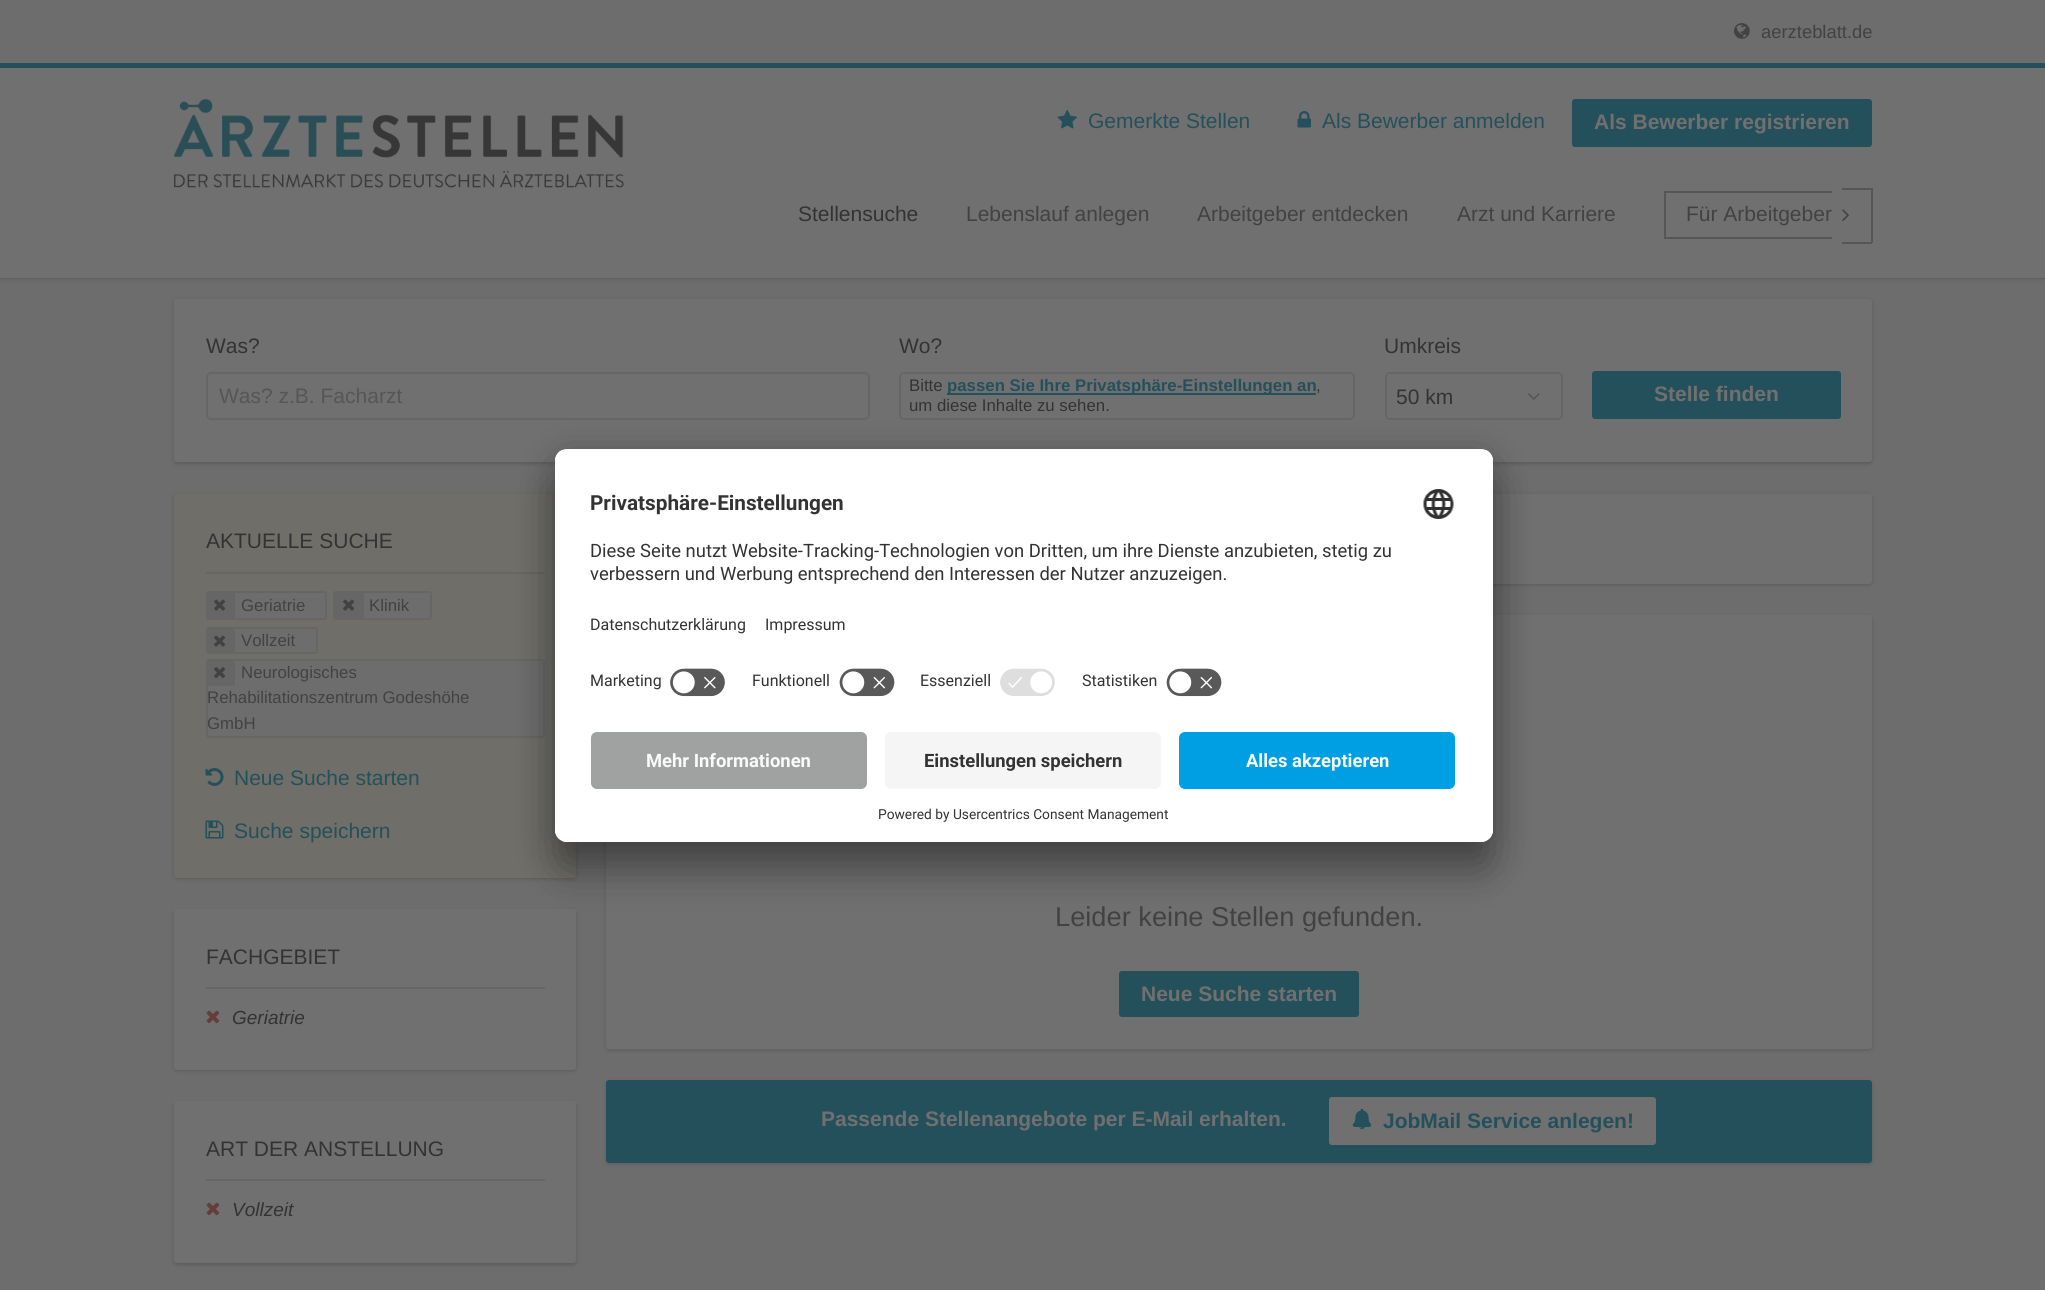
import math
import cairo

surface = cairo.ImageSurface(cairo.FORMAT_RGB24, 2045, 1290)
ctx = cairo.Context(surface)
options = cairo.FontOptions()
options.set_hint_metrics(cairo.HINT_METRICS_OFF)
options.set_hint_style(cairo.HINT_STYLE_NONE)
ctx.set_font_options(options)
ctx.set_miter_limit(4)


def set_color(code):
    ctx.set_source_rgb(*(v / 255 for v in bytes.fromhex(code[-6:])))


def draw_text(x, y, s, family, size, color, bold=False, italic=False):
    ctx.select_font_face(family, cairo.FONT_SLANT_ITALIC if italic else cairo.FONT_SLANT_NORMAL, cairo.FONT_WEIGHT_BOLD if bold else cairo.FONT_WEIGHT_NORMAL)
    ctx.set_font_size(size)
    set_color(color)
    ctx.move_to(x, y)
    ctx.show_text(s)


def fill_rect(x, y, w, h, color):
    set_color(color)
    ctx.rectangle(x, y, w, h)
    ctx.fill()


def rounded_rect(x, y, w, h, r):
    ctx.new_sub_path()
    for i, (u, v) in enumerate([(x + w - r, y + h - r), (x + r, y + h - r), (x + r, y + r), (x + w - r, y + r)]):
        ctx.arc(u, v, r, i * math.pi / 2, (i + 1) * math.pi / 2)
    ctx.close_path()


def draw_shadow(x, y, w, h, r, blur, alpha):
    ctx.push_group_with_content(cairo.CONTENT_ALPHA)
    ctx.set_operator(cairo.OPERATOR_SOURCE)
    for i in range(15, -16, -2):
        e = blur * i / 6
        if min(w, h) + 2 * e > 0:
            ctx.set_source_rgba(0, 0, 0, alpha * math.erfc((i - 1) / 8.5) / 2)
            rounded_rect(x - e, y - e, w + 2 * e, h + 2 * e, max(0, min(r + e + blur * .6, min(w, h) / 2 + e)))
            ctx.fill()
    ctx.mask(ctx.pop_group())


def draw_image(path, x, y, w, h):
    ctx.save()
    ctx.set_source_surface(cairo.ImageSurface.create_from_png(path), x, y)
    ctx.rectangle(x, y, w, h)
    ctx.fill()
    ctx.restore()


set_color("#6d6d6d")
ctx.paint()
fill_rect(0, 63, 2045, 5, "#24505b")
draw_image("assets/img1.png", 1734, 23, 16, 16)
draw_text(1761, 38, "aerzteblatt.de", "Liberation Sans", 18.4, "#424242")
set_color("#242424")
draw_shadow(0, 69, 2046, 210, 0, 2, 0.25)
fill_rect(0, 68, 2045, 210, "#707070")
draw_image("assets/img2.png", 174, 99, 450, 89)
draw_image("assets/img3.png", 1057, 109, 20, 20)
draw_text(1088, 128, "Gemerkte Stellen", "Liberation Sans", 21, "#24505b")
draw_image("assets/img4.png", 1297, 111, 14, 17)
draw_text(1322, 128, "Als Bewerber anmelden", "Liberation Sans", 21, "#24505b")
rounded_rect(1573, 100, 298, 46, 2)
ctx.fill_preserve()
ctx.stroke()
draw_text(1594, 129, "Als Bewerber registrieren", "Liberation Sans", 21, "#707070", bold=True)
draw_text(798, 221, "Stellensuche", "Liberation Sans", 21, "#333333")
draw_text(966, 221, "Lebenslauf anlegen", "Liberation Sans", 21, "#424242")
draw_text(1197, 221, "Arbeitgeber entdecken", "Liberation Sans", 21, "#424242")
draw_text(1457, 221, "Arzt und Karriere", "Liberation Sans", 21, "#424242")
fill_rect(1664, 191, 168, 2, "#565656")
fill_rect(1664, 237, 168, 2, "#565656")
fill_rect(1664, 191, 2, 48, "#565656")
fill_rect(1842, 188, 30, 2, "#565656")
fill_rect(1871, 188, 2, 55, "#565656")
fill_rect(1842, 242, 30, 2, "#565656")
draw_text(1686, 221, "Für Arbeitgeber", "Liberation Sans", 21, "#424242")
draw_image("assets/img5.png", 1842, 209, 7, 12)
set_color("#242424")
draw_shadow(174, 300, 1698, 164, 3, 2, 0.25)
set_color("#707070")
rounded_rect(174, 299, 1698, 163, 3)
ctx.fill()
draw_text(206, 353, "Was?", "Liberation Sans", 21, "#333333")
rounded_rect(207, 373, 662, 46, 4)
set_color("#666666")
ctx.stroke()
draw_text(219, 403, "Was? z.B. Facharzt", "Liberation Sans", 21, "#565656")
draw_text(899, 353, "Wo?", "Liberation Sans", 21, "#333333")
rounded_rect(900, 373, 454, 46, 4)
set_color("#666666")
ctx.stroke()
draw_text(909, 391, "Bitte", "Liberation Sans", 16.8, "#333333")
fill_rect(947, 393, 369, 2, "#24505b")
draw_text(947, 391, "passen Sie Ihre Privatsphäre-Einstellungen an", "Liberation Sans", 16.8, "#24505b", bold=True)
draw_text(1316, 391, ",", "Liberation Sans", 16.8, "#333333")
draw_text(909, 411, "um diese Inhalte zu sehen.", "Liberation Sans", 16.8, "#333333")
draw_text(1384, 353, "Umkreis", "Liberation Sans", 21, "#333333")
rounded_rect(1386, 373, 176, 46, 4)
set_color("#666666")
ctx.stroke()
draw_text(1396, 404, "50 km", "Liberation Sans", 21, "#333333")
draw_image("assets/img6.png", 1528, 393, 12, 7)
set_color("#24505b")
rounded_rect(1593, 372, 247, 46, 2)
ctx.fill_preserve()
ctx.stroke()
draw_text(1654, 401, "Stelle finden", "Liberation Sans", 21, "#707070", bold=True)
set_color("#242424")
draw_shadow(174, 495, 402, 384, 3, 2, 0.25)
set_color("#6f6e68")
rounded_rect(174, 494, 402, 384, 3)
ctx.fill()
fill_rect(206, 572, 339, 2, "#666666")
draw_text(206, 548, "AKTUELLE SUCHE", "Liberation Sans", 21, "#333333")
set_color("#6d6d6d")
rounded_rect(207, 592, 119, 27, 2)
ctx.fill_preserve()
set_color("#666666")
ctx.stroke()
fill_rect(208, 593, 27, 25, "#666666")
draw_image("assets/img7.png", 214, 599, 12, 12)
draw_text(241, 611, "Geriatrie", "Liberation Sans", 16.8, "#424242")
set_color("#6d6d6d")
rounded_rect(334, 592, 97, 27, 2)
ctx.fill_preserve()
set_color("#666666")
ctx.stroke()
fill_rect(335, 593, 29, 25, "#666666")
draw_image("assets/img7.png", 343, 599, 12, 12)
draw_text(369, 611, "Klinik", "Liberation Sans", 16.8, "#424242")
set_color("#6d6d6d")
rounded_rect(207, 628, 110, 25, 2)
ctx.fill_preserve()
set_color("#666666")
ctx.stroke()
fill_rect(208, 629, 25, 23, "#666666")
fill_rect(233, 629, 2, 24, "#666666")
draw_image("assets/img7.png", 214, 635, 12, 12)
draw_text(241, 646, "Vollzeit", "Liberation Sans", 16.8, "#424242")
set_color("#6d6d6d")
rounded_rect(207, 660, 337, 77, 2)
ctx.fill_preserve()
set_color("#666666")
ctx.stroke()
fill_rect(208, 661, 25, 25, "#666666")
fill_rect(233, 660, 2, 26, "#666666")
draw_image("assets/img8.png", 214, 667, 12, 12)
draw_text(241, 678, "Neurologisches", "Liberation Sans", 16.8, "#424242")
draw_text(207, 703, "Rehabilitationszentrum Godeshöhe", "Liberation Sans", 16.8, "#424242")
draw_text(207, 729, "GmbH", "Liberation Sans", 16.8, "#424242")
draw_image("assets/img9.png", 205, 768, 19, 18)
draw_text(234, 785, "Neue Suche starten", "Liberation Sans", 21, "#24505b")
draw_image("assets/img10.png", 205, 820, 19, 19)
draw_text(234, 838, "Suche speichern", "Liberation Sans", 21, "#24505b")
set_color("#242424")
draw_shadow(174, 911, 402, 160, 3, 2, 0.25)
set_color("#707070")
rounded_rect(174, 909, 402, 161, 3)
ctx.fill()
fill_rect(206, 987, 339, 2, "#666666")
draw_text(206, 964, "FACHGEBIET", "Liberation Sans", 21, "#333333")
draw_image("assets/img11.png", 206, 1010, 14, 14)
draw_text(232, 1024, "Geriatrie", "Liberation Sans", 19, "#333333", italic=True)
set_color("#242424")
draw_shadow(174, 1103, 402, 162, 3, 2, 0.25)
set_color("#707070")
rounded_rect(174, 1101, 402, 162, 3)
ctx.fill()
fill_rect(206, 1179, 339, 2, "#666666")
draw_text(206, 1156, "ART DER ANSTELLUNG", "Liberation Sans", 21, "#333333")
draw_image("assets/img11.png", 206, 1202, 14, 14)
draw_text(232, 1216, "Vollzeit", "Liberation Sans", 19, "#333333", italic=True)
set_color("#242424")
draw_shadow(606, 495, 1266, 90, 3, 2, 0.25)
set_color("#707070")
rounded_rect(606, 494, 1266, 90, 3)
ctx.fill()
set_color("#242424")
draw_shadow(606, 617, 1266, 433, 3, 2, 0.25)
set_color("#707070")
rounded_rect(606, 615, 1266, 434, 3)
ctx.fill()
draw_text(1055, 926, "Leider keine Stellen gefunden.", "Liberation Sans", 27.25, "#424242")
set_color("#24505b")
rounded_rect(1120, 972, 238, 44, 2)
ctx.fill_preserve()
ctx.stroke()
draw_text(1141, 1001, "Neue Suche starten", "Liberation Sans", 21, "#707070", bold=True)
set_color("#242424")
draw_shadow(606, 1082, 1266, 82, 3, 2, 0.25)
set_color("#24505b")
rounded_rect(606, 1080, 1266, 83, 3)
ctx.fill()
draw_text(821, 1126, "Passende Stellenangebote per E-Mail erhalten.", "Liberation Sans", 21, "#707070", bold=True)
rounded_rect(1330, 1098, 325, 46, 2)
ctx.fill_preserve()
ctx.stroke()
draw_image("assets/img12.png", 1352, 1108, 20, 22)
draw_text(1383, 1128, "JobMail Service anlegen!", "Liberation Sans", 21, "#24505b", bold=True)
set_color("#000000")
draw_shadow(555, 479, 938, 393, 12, 21, 0.3)
draw_shadow(555, 456, 938, 393, 12, 19.5, 0.22)
set_color("#ffffff")
rounded_rect(555, 449, 938, 393, 12)
ctx.fill()
ctx.save()
rounded_rect(555, 449, 938, 393, 12)
ctx.clip()
ctx.new_path()
ctx.move_to(567, 449)
ctx.line_to(1481, 449)
ctx.curve_to(1487.5, 449, 1493, 454.5, 1493, 461)
ctx.line_to(1493, 720)
ctx.line_to(555, 720)
ctx.line_to(555, 461)
ctx.curve_to(555, 454.5, 560.5, 449, 567, 449)
ctx.close_path()
ctx.clip()
fill_rect(555, 450, 938, 270, "#ffffff")
fill_rect(555, 450, 938, 210, "#ffffff")
ctx.restore()
draw_text(590, 510, "Privatsphäre-Einstellungen", "Roboto", 20.75, "#333333", bold=True)
draw_image("assets/img13.png", 1423, 489, 31, 30)
draw_text(590, 557, "Diese Seite nutzt Website-Tracking-Technologien von Dritten, um ihre Dienste anzubieten, stetig zu", "Roboto", 18.4, "#333333")
draw_text(590, 580, "verbessern und Werbung entsprechend den Interessen der Nutzer anzuzeigen.", "Roboto", 18.4, "#333333")
draw_text(590, 630, "Datenschutzerklärung", "Roboto", 16, "#333333")
draw_text(765, 630, "Impressum", "Roboto", 16, "#333333")
draw_text(590, 686, "Marketing", "Roboto", 16, "#333333")
draw_image("assets/img14.png", 670, 668, 55, 29)
draw_text(752, 686, "Funktionell", "Roboto", 16, "#333333")
draw_image("assets/img15.png", 839, 668, 56, 29)
draw_text(920, 686, "Essenziell", "Roboto", 16, "#333333")
draw_image("assets/img16.png", 1000, 668, 55, 28)
draw_text(1082, 686, "Statistiken", "Roboto", 16, "#333333")
draw_image("assets/img15.png", 1166, 668, 56, 29)
set_color("#ffffff")
ctx.new_path()
ctx.move_to(555, 720)
ctx.line_to(1493, 720)
ctx.line_to(1493, 830)
ctx.curve_to(1493, 836.5, 1487.5, 842, 1481, 842)
ctx.line_to(567, 842)
ctx.curve_to(560.5, 842, 555, 836.5, 555, 830)
ctx.close_path()
ctx.fill()
set_color("#a0a1a1")
rounded_rect(591, 732, 276, 57, 6)
ctx.fill()
draw_text(646, 767, "Mehr Informationen", "Roboto", 18.4, "#fafafa", bold=True)
set_color("#f5f5f5")
rounded_rect(885, 732, 276, 57, 6)
ctx.fill()
draw_text(924, 767, "Einstellungen speichern", "Roboto", 18.4, "#333333", bold=True)
set_color("#009ee3")
rounded_rect(1179, 732, 276, 57, 6)
ctx.fill()
draw_text(1246, 767, "Alles akzeptieren", "Roboto", 18.4, "#fafafa", bold=True)
draw_text(878, 819, "Powered by Usercentrics Consent Management", "Roboto", 13.75, "#333333")
surface.write_to_png("output.png")
